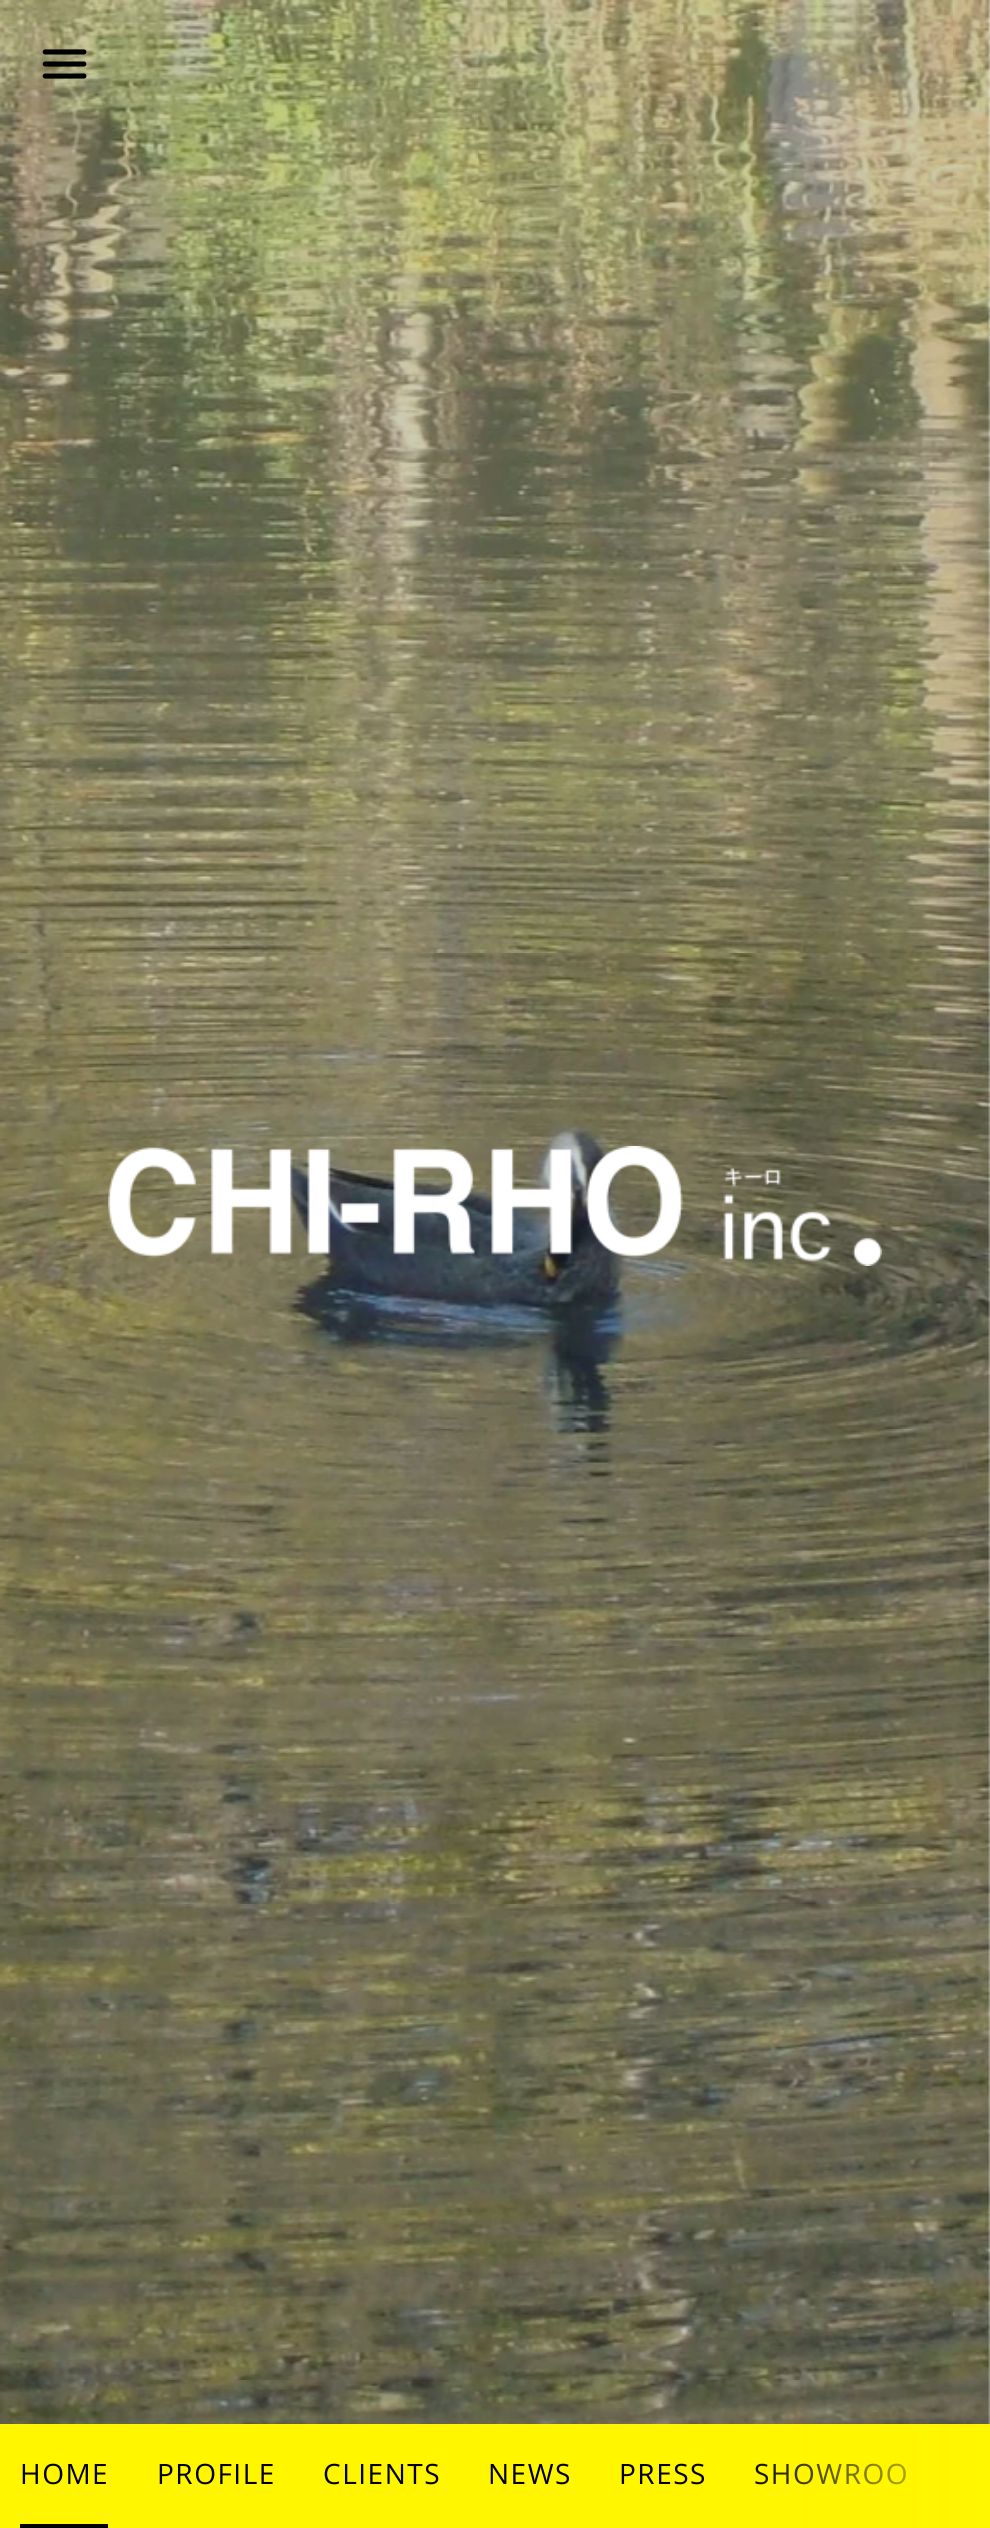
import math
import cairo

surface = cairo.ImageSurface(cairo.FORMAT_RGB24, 990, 2528)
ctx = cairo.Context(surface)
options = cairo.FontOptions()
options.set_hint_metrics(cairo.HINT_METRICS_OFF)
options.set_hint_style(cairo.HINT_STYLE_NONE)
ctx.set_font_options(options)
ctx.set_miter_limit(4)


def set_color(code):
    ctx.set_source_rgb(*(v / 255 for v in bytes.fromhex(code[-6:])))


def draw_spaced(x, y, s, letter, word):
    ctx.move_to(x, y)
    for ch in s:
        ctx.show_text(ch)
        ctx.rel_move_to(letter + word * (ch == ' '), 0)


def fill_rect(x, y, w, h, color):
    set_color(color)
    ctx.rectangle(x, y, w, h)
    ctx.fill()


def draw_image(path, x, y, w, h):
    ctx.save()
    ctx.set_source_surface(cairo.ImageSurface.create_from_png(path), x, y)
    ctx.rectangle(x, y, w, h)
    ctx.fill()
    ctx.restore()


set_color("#ffffff")
ctx.paint()
draw_image("assets/img1.png", 0, 0, 990, 2424)
draw_image("assets/img2.png", 42, 49, 45, 30)
draw_image("assets/img3.png", 108, 1146, 774, 120)
fill_rect(0, 2424, 989, 104, "#fff600")
ctx.select_font_face("Open Sans")
ctx.set_font_size(28)
set_color("#000000")
draw_spaced(754, 2484, "SHOWROO", 1.5, 0)
gradient = cairo.LinearGradient(740, 2476, 990, 2476)
gradient.add_color_stop_rgba(0, 1, 0.965, 0, 0)
gradient.add_color_stop_rgba(1, 1, 0.965, 0, 1)
ctx.set_source(gradient)
ctx.rectangle(755, 2424, 235, 104)
ctx.fill()
set_color("#000000")
draw_spaced(20, 2484, "HOME", 1.5, 0)
fill_rect(20, 2524, 88, 4, "#000000")
draw_spaced(157, 2484, "PROFILE", 1.5, 0)
draw_spaced(323, 2484, "CLIENTS", 1.5, 0)
draw_spaced(488, 2484, "NEWS", 1.5, 0)
draw_spaced(619, 2484, "PRESS", 1.5, 0)
surface.write_to_png("output.png")
